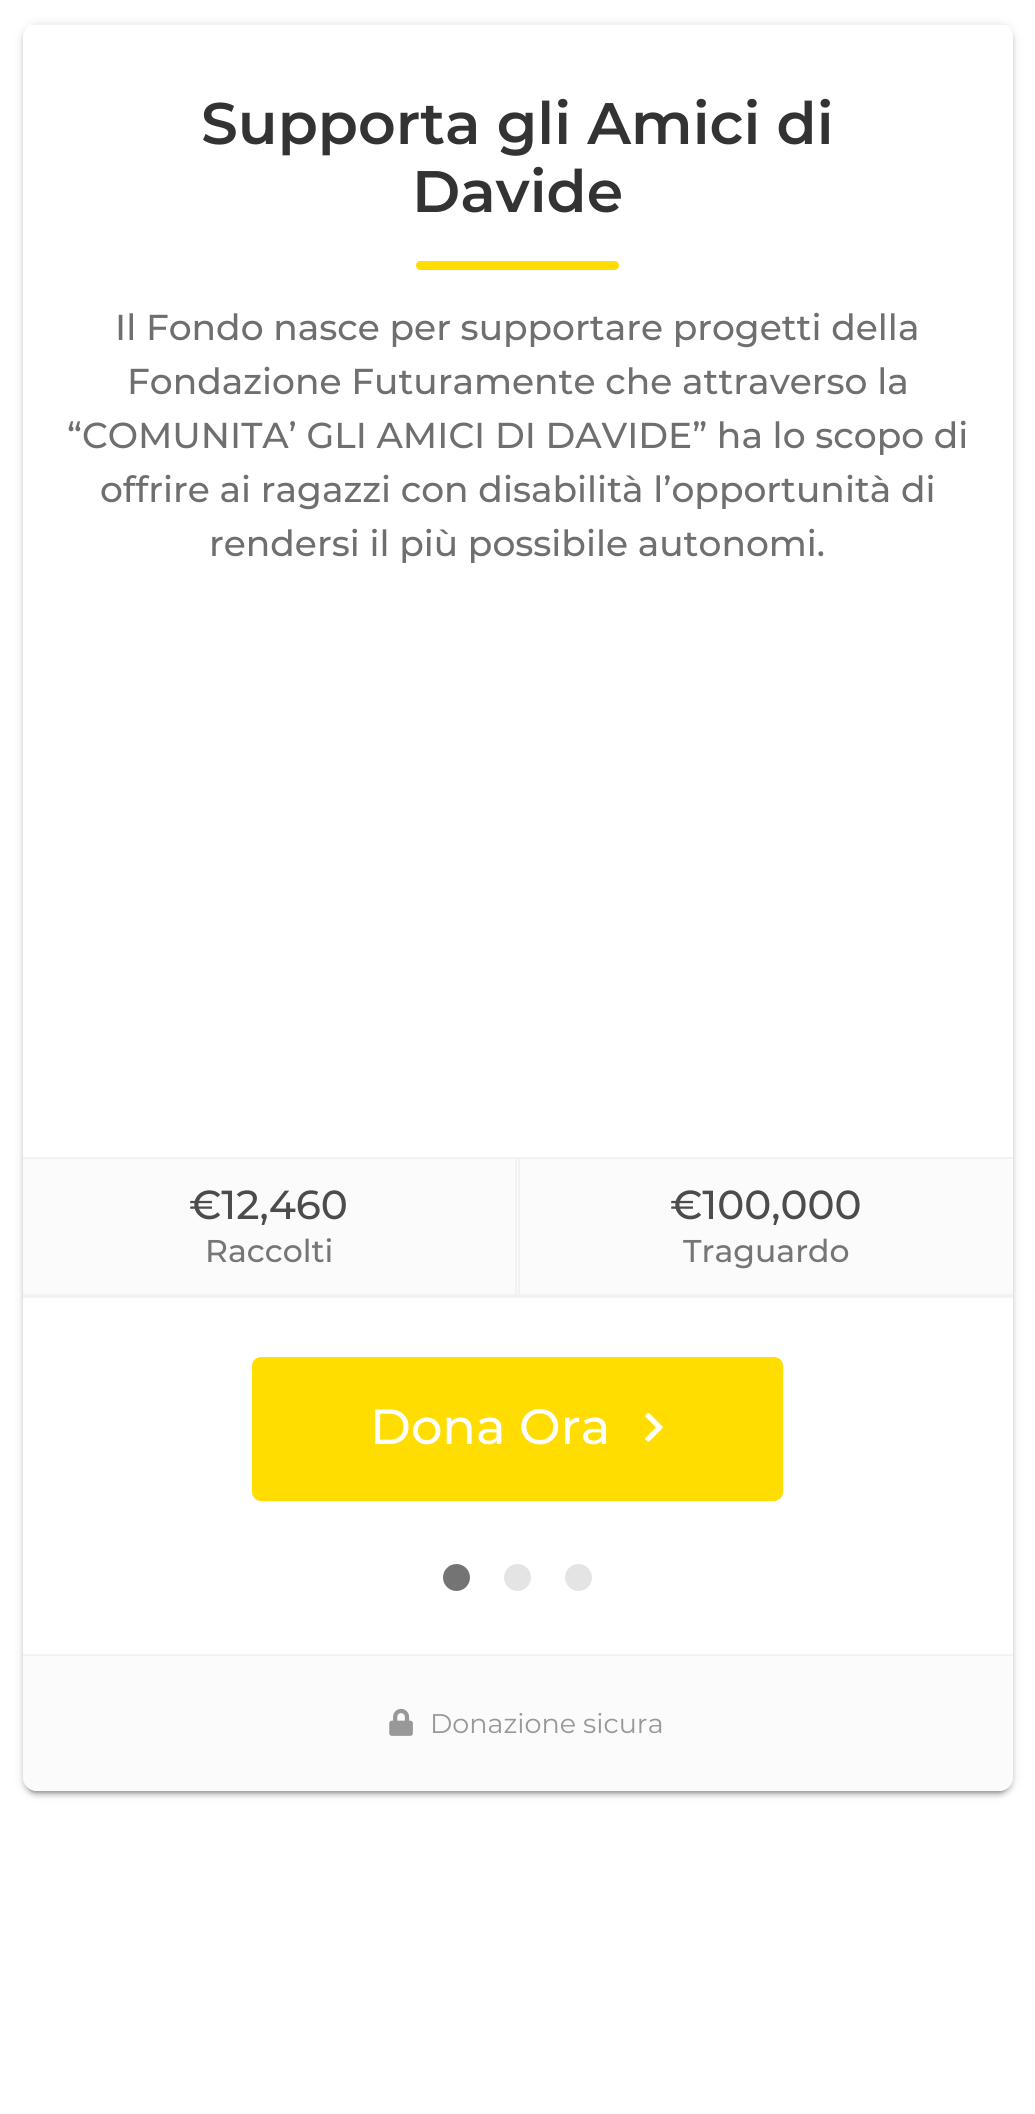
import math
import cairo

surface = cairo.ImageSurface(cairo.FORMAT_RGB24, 1035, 2114)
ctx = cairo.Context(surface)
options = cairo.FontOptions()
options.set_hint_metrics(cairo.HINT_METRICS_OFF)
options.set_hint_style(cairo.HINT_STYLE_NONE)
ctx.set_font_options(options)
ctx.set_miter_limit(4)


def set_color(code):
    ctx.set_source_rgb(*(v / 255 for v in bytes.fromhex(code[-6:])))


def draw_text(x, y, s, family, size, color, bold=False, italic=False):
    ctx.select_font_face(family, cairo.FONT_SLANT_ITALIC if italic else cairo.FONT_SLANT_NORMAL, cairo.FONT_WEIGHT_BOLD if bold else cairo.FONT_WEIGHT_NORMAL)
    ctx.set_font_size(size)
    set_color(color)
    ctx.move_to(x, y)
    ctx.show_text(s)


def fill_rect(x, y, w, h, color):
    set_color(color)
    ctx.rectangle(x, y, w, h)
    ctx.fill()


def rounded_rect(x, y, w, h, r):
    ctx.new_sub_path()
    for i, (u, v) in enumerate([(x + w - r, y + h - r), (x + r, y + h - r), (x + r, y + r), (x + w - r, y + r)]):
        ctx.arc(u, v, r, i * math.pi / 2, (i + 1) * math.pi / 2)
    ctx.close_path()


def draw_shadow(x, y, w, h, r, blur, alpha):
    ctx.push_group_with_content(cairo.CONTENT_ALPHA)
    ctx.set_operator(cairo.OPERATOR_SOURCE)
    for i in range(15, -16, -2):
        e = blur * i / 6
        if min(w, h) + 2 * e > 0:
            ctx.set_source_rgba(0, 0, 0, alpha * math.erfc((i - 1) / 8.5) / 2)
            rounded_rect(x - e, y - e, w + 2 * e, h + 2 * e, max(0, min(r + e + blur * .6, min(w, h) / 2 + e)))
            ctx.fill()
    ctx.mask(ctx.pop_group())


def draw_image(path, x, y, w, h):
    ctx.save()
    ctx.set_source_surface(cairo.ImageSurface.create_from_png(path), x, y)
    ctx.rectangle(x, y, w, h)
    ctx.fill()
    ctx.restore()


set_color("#ffffff")
ctx.paint()
set_color("#000000")
draw_shadow(23, 25, 990, 1768, 14, 5.5, 0.12)
draw_shadow(27, 34, 981, 1759, 9, 1, 0.2)
draw_shadow(23, 27, 990, 1769, 14, 2, 0.14)
set_color("#ffffff")
rounded_rect(23, 23, 990, 1768, 14)
ctx.fill()
ctx.save()
rounded_rect(23, 23, 990, 1768, 14)
ctx.clip()
fill_rect(23, 23, 990, 2, "#f2f2f2")
ctx.restore()
draw_text(201, 144, "Supporta gli Amici di", "Montserrat SemiBold", 58.5, "#333333")
draw_text(412, 212, "Davide", "Montserrat SemiBold", 58.5, "#333333")
set_color("#ffdd00")
rounded_rect(416, 261, 203, 9, 4.5)
ctx.fill()
draw_text(115, 340, "Il Fondo nasce per supportare progetti della", "Montserrat Medium", 36, "#6f6f6f")
draw_text(127, 394, "Fondazione Futuramente che attraverso la", "Montserrat Medium", 36, "#6f6f6f")
draw_text(67, 448, "“COMUNITA’ GLI AMICI DI DAVIDE” ha lo scopo di", "Montserrat Medium", 36, "#6f6f6f")
draw_text(100, 502, "offrire ai ragazzi con disabilità l’opportunità di", "Montserrat Medium", 36, "#6f6f6f")
draw_text(209, 556, "rendersi il più possibile autonomi.", "Montserrat Medium", 36, "#6f6f6f")
fill_rect(23, 1159, 990, 135, "#fbfbfb")
fill_rect(23, 1157, 990, 2, "#f2f2f2")
fill_rect(515, 1157, 2, 139, "#f2f2f2")
fill_rect(23, 1294, 990, 4, "#f2f2f2")
draw_text(189, 1219, "€12,460", "Montserrat Medium", 40.5, "#4c4c4c")
draw_text(205, 1262, "Raccolti", "Montserrat Medium", 31.5, "#767676")
fill_rect(518, 1157, 2, 139, "#f2f2f2")
draw_text(670, 1219, "€100,000", "Montserrat Medium", 40.5, "#4c4c4c")
draw_text(683, 1262, "Traguardo", "Montserrat Medium", 31.5, "#767676")
set_color("#ffdd00")
rounded_rect(254.5, 1359.5, 526, 139, 6.5)
ctx.fill_preserve()
ctx.set_line_width(5)
ctx.stroke()
draw_text(370, 1444, "Dona Ora", "Montserrat Medium", 49.5, "#ffffff")
draw_image("assets/img1.png", 645, 1413, 18, 29)
set_color("#747474")
ctx.arc(456.5, 1577.5, 13.5, 0, 2 * math.pi)
ctx.fill()
set_color("#e4e4e4")
ctx.arc(517.5, 1577.5, 13.5, 0, 2 * math.pi)
ctx.fill()
ctx.arc(578.5, 1577.5, 13.5, 0, 2 * math.pi)
ctx.fill()
set_color("#fbfbfb")
ctx.new_path()
ctx.move_to(23, 1654)
ctx.line_to(1013, 1654)
ctx.line_to(1013, 1777)
ctx.curve_to(1013, 1784.5, 1006.5, 1791, 999, 1791)
ctx.line_to(37, 1791)
ctx.curve_to(29.5, 1791, 23, 1784.5, 23, 1777)
ctx.close_path()
ctx.fill()
fill_rect(23, 1654, 990, 2, "#f2f2f2")
draw_image("assets/img2.png", 389, 1708, 24, 28)
draw_text(430, 1733, "Donazione sicura", "Montserrat", 27, "#989898")
surface.write_to_png("output.png")
